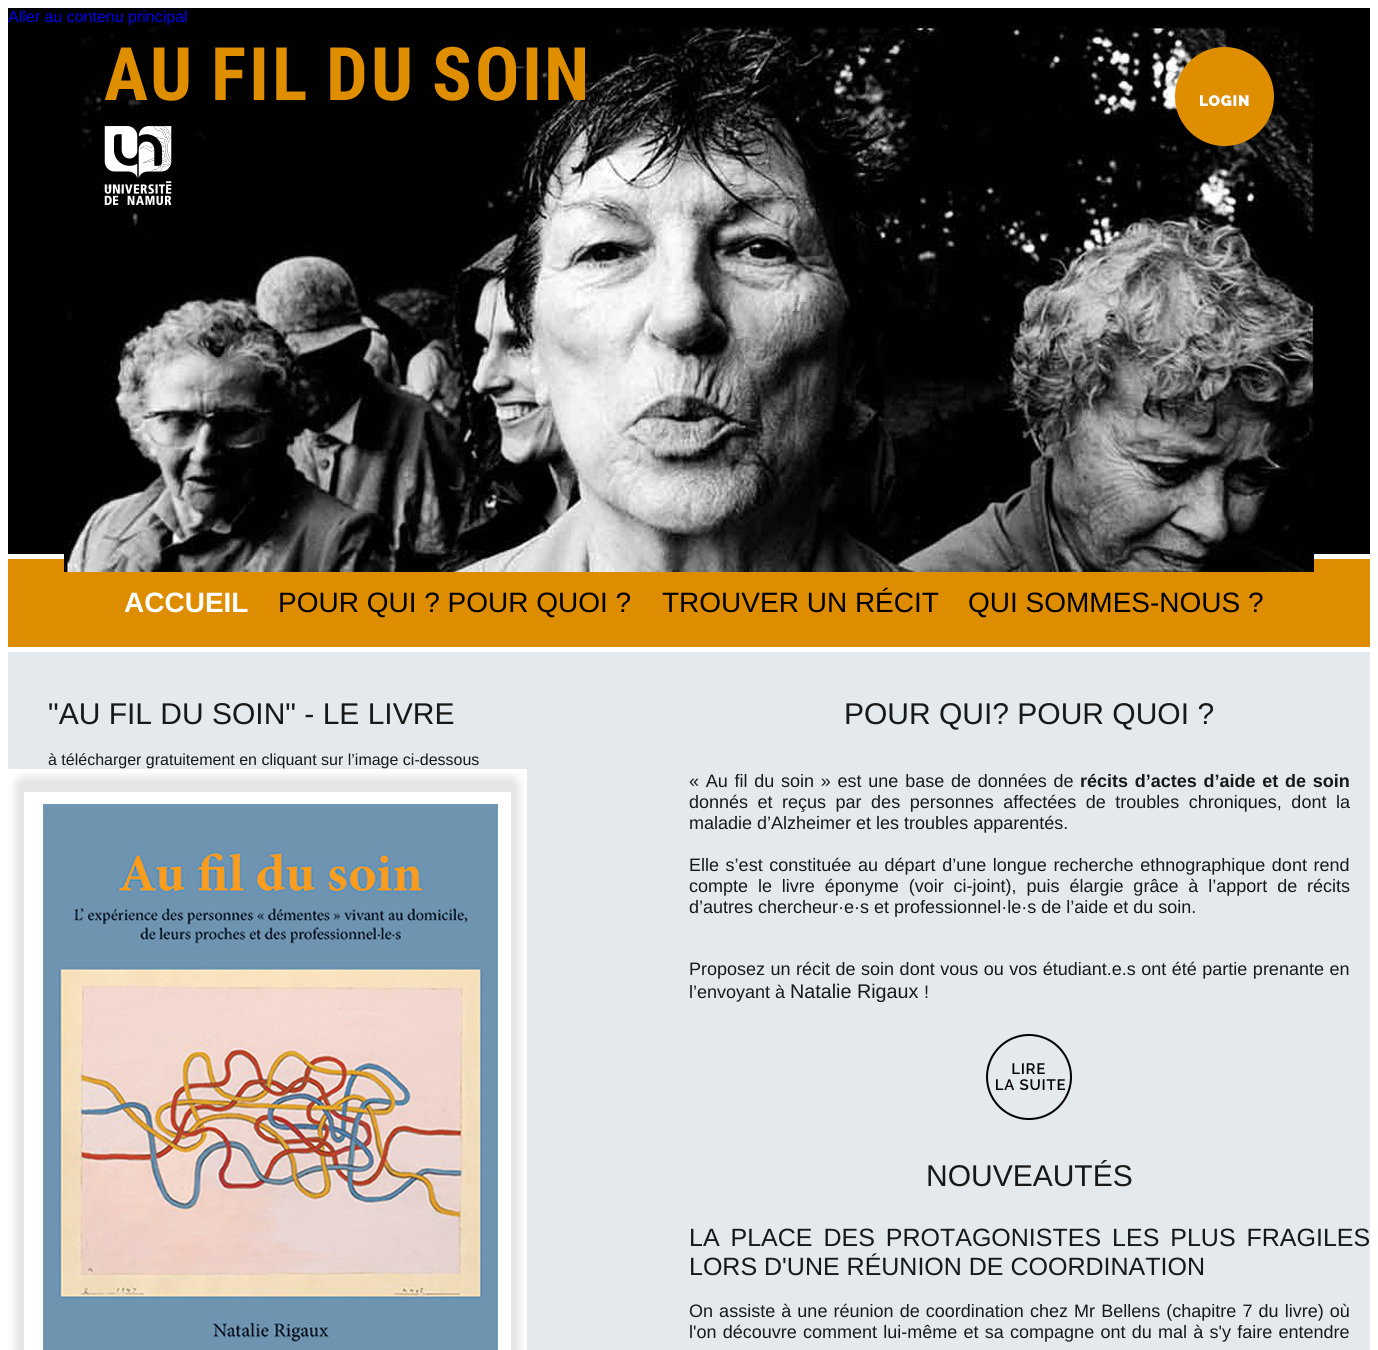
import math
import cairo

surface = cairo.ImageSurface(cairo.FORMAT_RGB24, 1378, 1350)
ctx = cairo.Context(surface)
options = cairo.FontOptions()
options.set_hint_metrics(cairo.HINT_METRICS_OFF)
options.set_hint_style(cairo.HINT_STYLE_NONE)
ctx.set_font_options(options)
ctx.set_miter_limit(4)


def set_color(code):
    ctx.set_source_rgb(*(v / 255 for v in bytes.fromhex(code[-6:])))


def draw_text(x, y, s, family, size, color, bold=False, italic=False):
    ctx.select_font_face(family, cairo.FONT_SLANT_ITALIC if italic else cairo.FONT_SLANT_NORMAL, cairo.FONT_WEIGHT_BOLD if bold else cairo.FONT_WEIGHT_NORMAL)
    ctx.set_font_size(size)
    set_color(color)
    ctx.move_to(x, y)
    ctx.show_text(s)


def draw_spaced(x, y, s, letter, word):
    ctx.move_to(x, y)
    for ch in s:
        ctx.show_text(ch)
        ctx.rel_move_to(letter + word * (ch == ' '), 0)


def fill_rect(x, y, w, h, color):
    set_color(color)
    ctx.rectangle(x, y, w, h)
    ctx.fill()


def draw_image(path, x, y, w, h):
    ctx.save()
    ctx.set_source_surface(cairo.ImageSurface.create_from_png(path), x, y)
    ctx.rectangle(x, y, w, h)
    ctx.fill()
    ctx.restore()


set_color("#ffffff")
ctx.paint()
fill_rect(8, 8, 1362, 546, "#000000")
draw_text(8, 22, "Aller au contenu principal", "Liberation Sans", 16, "#0000ee")
fill_rect(8, 559, 1362, 88, "#de8d01")
draw_image("assets/img1.png", 64, 26, 1250, 546)
draw_image("assets/img2.png", 104, 46, 481, 55)
draw_image("assets/img3.png", 1175, 47, 99, 99)
draw_image("assets/img4.png", 104, 126, 68, 80)
draw_text(124, 612, "ACCUEIL", "Liberation Sans", 28, "#ffffff", bold=True)
draw_text(278, 612, "POUR QUI ? POUR QUOI ?", "Liberation Sans", 28, "#000000")
draw_text(662, 612, "TROUVER UN RÉCIT", "Liberation Sans", 28, "#000000")
draw_text(968, 612, "QUI SOMMES-NOUS ?", "Liberation Sans", 28, "#000000")
fill_rect(8, 652, 1362, 698, "#e3e9ed")
draw_text(48, 724, "\"AU FIL DU SOIN\" - LE LIVRE", "Liberation Sans", 30, "#181818")
draw_text(48, 765, "à télécharger gratuitement en cliquant sur l’image ci-dessous", "Liberation Sans", 16, "#181818")
draw_image("assets/img5.png", 8, 769, 519, 581)
draw_text(844, 724, "POUR QUI? POUR QUOI ?", "Liberation Sans", 30, "#181818")
ctx.set_font_size(18)
draw_spaced(689, 787, "« Au fil du soin » est une base de données de", 0, 1.75)
ctx.select_font_face("Liberation Sans", cairo.FONT_SLANT_NORMAL, cairo.FONT_WEIGHT_BOLD)
draw_spaced(1080, 787, "récits d’actes d’aide et de soin", 0, 1.75)
ctx.select_font_face("Liberation Sans")
draw_spaced(689, 808, "donnés et reçus par des personnes affectées de troubles chroniques, dont la", 0, 4.5)
draw_text(689, 829, "maladie d’Alzheimer et les troubles apparentés.", "Liberation Sans", 18, "#181818")
draw_spaced(689, 871, "Elle s’est constituée au départ d’une longue recherche ethnographique dont rend", 0, 1.6)
draw_spaced(689, 892, "compte le livre éponyme (voir ci-joint), puis élargie grâce à l’apport de récits", 0, 4.9)
draw_text(689, 913, "d’autres chercheur·e·s et professionnel·le·s de l’aide et du soin.", "Liberation Sans", 18, "#181818")
draw_spaced(689, 975, "Proposez un récit de soin dont vous ou vos étudiant.e.s ont été partie prenante en", 0, 0.5)
draw_text(689, 998, "l’envoyant à", "Liberation Sans", 18, "#181818")
draw_text(790, 998, "Natalie Rigaux", "Liberation Sans", 19.75, "#181818")
draw_text(924, 998, "!", "Liberation Sans", 18, "#181818")
draw_image("assets/img6.png", 986, 1034, 86, 86)
draw_text(926, 1186, "NOUVEAUTÉS", "Liberation Sans", 30, "#181818")
ctx.set_font_size(25)
draw_spaced(689, 1246, "LA PLACE DES PROTAGONISTES LES PLUS FRAGILES", 0, 4)
draw_text(689, 1275, "LORS D'UNE RÉUNION DE COORDINATION", "Liberation Sans", 25, "#181818")
ctx.set_font_size(18)
draw_spaced(689, 1317, "On assiste à une réunion de coordination chez Mr Bellens (chapitre 7 du livre) où", 0, 1.1)
draw_spaced(689, 1338, "l'on découvre comment lui-même et sa compagne ont du mal à s'y faire entendre", 0, 1.25)
surface.write_to_png("output.png")
